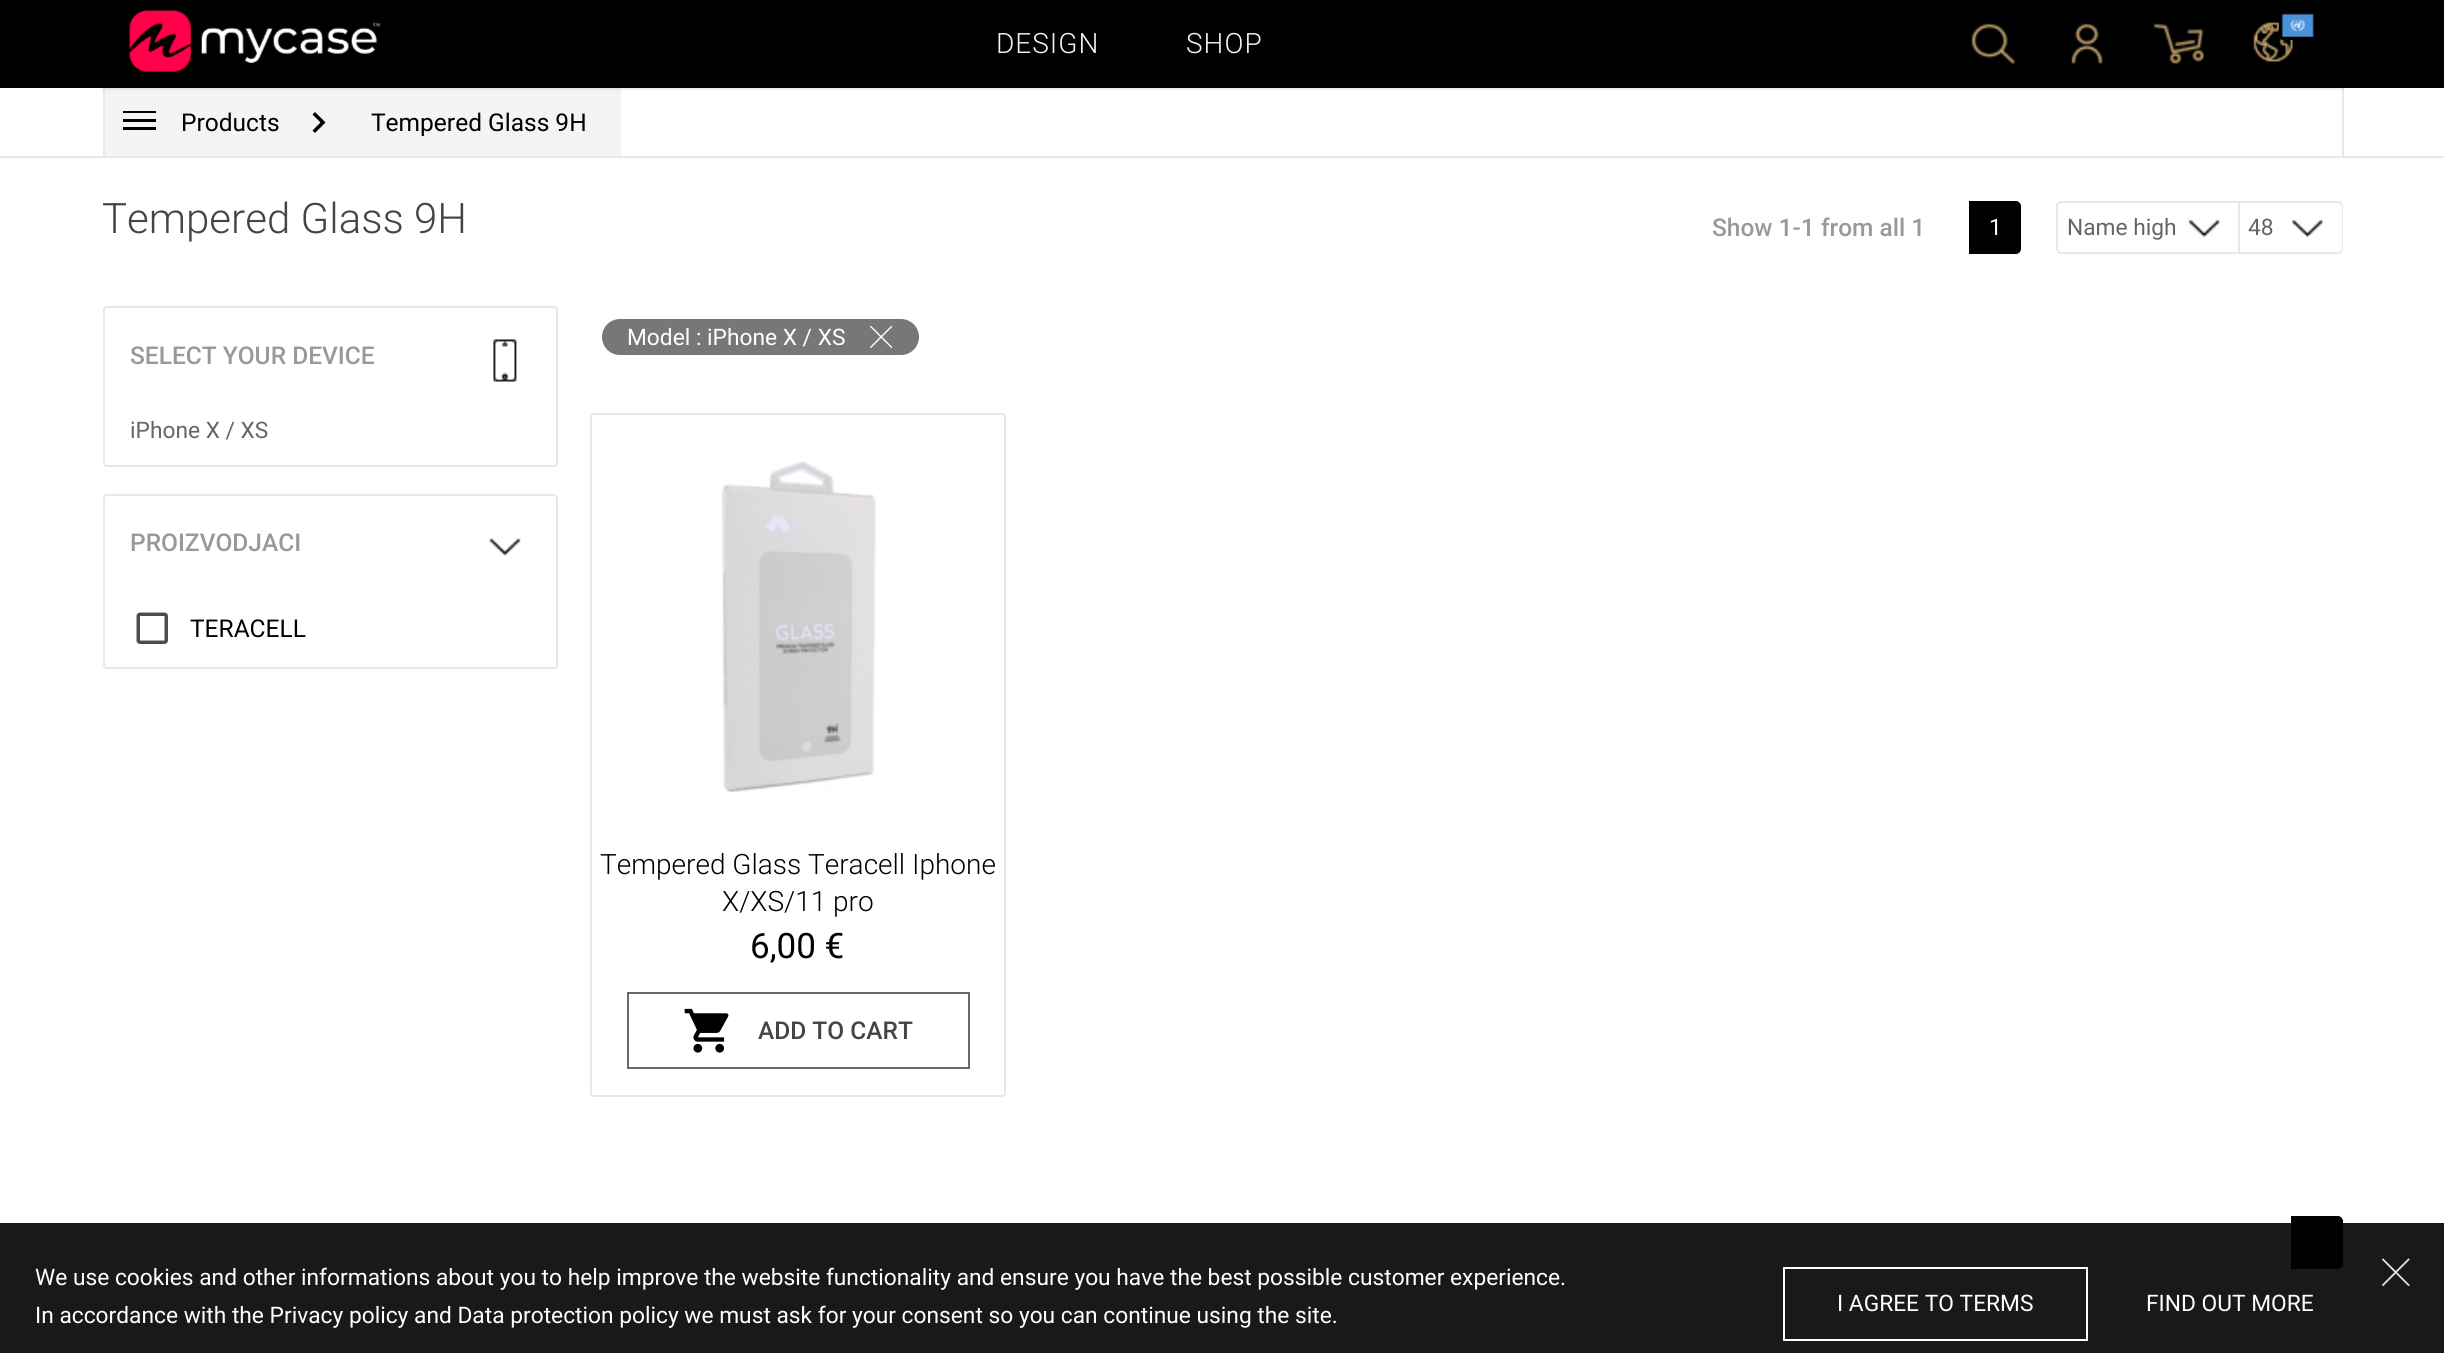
import math
import cairo

surface = cairo.ImageSurface(cairo.FORMAT_RGB24, 2444, 1353)
ctx = cairo.Context(surface)
options = cairo.FontOptions()
options.set_hint_metrics(cairo.HINT_METRICS_OFF)
options.set_hint_style(cairo.HINT_STYLE_NONE)
ctx.set_font_options(options)
ctx.set_miter_limit(4)


def set_color(code):
    ctx.set_source_rgb(*(v / 255 for v in bytes.fromhex(code[-6:])))


def draw_text(x, y, s, family, size, color, bold=False, italic=False):
    ctx.select_font_face(family, cairo.FONT_SLANT_ITALIC if italic else cairo.FONT_SLANT_NORMAL, cairo.FONT_WEIGHT_BOLD if bold else cairo.FONT_WEIGHT_NORMAL)
    ctx.set_font_size(size)
    set_color(color)
    ctx.move_to(x, y)
    ctx.show_text(s)


def draw_spaced(x, y, s, letter, word):
    ctx.move_to(x, y)
    for ch in s:
        ctx.show_text(ch)
        ctx.rel_move_to(letter + word * (ch == ' '), 0)


def fill_rect(x, y, w, h, color):
    set_color(color)
    ctx.rectangle(x, y, w, h)
    ctx.fill()


def rounded_rect(x, y, w, h, r):
    ctx.new_sub_path()
    for i, (u, v) in enumerate([(x + w - r, y + h - r), (x + r, y + h - r), (x + r, y + r), (x + w - r, y + r)]):
        ctx.arc(u, v, r, i * math.pi / 2, (i + 1) * math.pi / 2)
    ctx.close_path()


def draw_shadow(x, y, w, h, r, blur, alpha):
    ctx.push_group_with_content(cairo.CONTENT_ALPHA)
    ctx.set_operator(cairo.OPERATOR_SOURCE)
    for i in range(15, -16, -2):
        e = blur * i / 6
        if min(w, h) + 2 * e > 0:
            ctx.set_source_rgba(0, 0, 0, alpha * math.erfc((i - 1) / 8.5) / 2)
            rounded_rect(x - e, y - e, w + 2 * e, h + 2 * e, max(0, min(r + e + blur * .6, min(w, h) / 2 + e)))
            ctx.fill()
    ctx.mask(ctx.pop_group())


def draw_image(path, x, y, w, h):
    ctx.save()
    ctx.set_source_surface(cairo.ImageSurface.create_from_png(path), x, y)
    ctx.rectangle(x, y, w, h)
    ctx.fill()
    ctx.restore()


set_color("#ffffff")
ctx.paint()
fill_rect(0, 0, 2444, 88, "#000000")
fill_rect(2342, 88, 2, 68, "#e7e7e7")
fill_rect(103, 88, 2, 68, "#e7e7e7")
fill_rect(105, 88, 516, 68, "#f4f4f4")
ctx.save()
ctx.set_fill_rule(cairo.FILL_RULE_EVEN_ODD)
ctx.new_path()
ctx.move_to(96, 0)
ctx.line_to(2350, 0)
ctx.line_to(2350, 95)
ctx.line_to(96, 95)
ctx.close_path()
ctx.move_to(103, 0)
ctx.line_to(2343, 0)
ctx.line_to(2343, 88)
ctx.line_to(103, 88)
ctx.close_path()
ctx.clip()
set_color("#000000")
draw_shadow(103, 0, 2240, 88, 0, 2, 0.2)
ctx.restore()
draw_image("assets/img1.png", 128, 9, 252, 63)
ctx.select_font_face("Roboto Light")
ctx.set_font_size(28)
set_color("#f5f4f0")
draw_spaced(996, 53, "DESIGN", 1, 0)
draw_spaced(1186, 53, "SHOP", 1, 0)
draw_image("assets/img2.png", 1971, 23, 44, 41)
draw_image("assets/img3.png", 2071, 23, 32, 41)
draw_image("assets/img4.png", 2153, 23, 51, 41)
draw_image("assets/img5.png", 2253, 22, 40, 40)
rounded_rect(2281, 13, 34, 25, 2)
set_color("#000000")
ctx.set_line_width(4)
ctx.stroke()
draw_image("assets/img6.png", 2281, 13, 33, 24)
fill_rect(0, 156, 2444, 2, "#e7e7e7")
fill_rect(123, 111, 33, 2, "#000000")
fill_rect(123, 127, 33, 3, "#000000")
fill_rect(123, 119, 33, 3, "#000000")
draw_text(181, 131, "Products", "Roboto", 24.5, "#000000")
ctx.new_path()
ctx.move_to(315, 112)
ctx.line_to(312.5, 114.5)
ctx.line_to(320.5, 122.5)
ctx.line_to(312.5, 130.5)
ctx.line_to(315, 133)
ctx.line_to(325.5, 122.5)
ctx.close_path()
ctx.fill()
draw_text(371, 131, "Tempered Glass 9H", "Roboto", 24.5, "#000000")
draw_text(102, 233, "Tempered Glass 9H", "Roboto Light", 42, "#444444")
draw_text(1712, 236, "Show 1-1 from all 1", "Roboto Medium", 24.5, "#999999")
set_color("#000000")
ctx.new_path()
ctx.move_to(1970, 202)
ctx.line_to(2016, 202)
ctx.curve_to(2018, 202, 2020, 204, 2020, 206)
ctx.line_to(2020, 249)
ctx.curve_to(2020, 251, 2018, 253, 2016, 253)
ctx.line_to(1970, 253)
ctx.close_path()
ctx.fill_preserve()
ctx.set_line_width(2)
ctx.stroke()
draw_text(1989, 235, "1", "Roboto", 22.75, "#ffffff")
ctx.new_path()
ctx.move_to(2061, 202)
ctx.line_to(2239, 202)
ctx.line_to(2239, 253)
ctx.line_to(2061, 253)
ctx.curve_to(2059, 253, 2057, 251, 2057, 249)
ctx.line_to(2057, 206)
ctx.curve_to(2057, 204, 2059, 202, 2061, 202)
ctx.close_path()
set_color("#e7e7e7")
ctx.stroke()
draw_text(2067, 235, "Name high", "Roboto", 22.75, "#666666")
draw_image("assets/img7.png", 2188, 220, 32, 17)
set_color("#e7e7e7")
ctx.set_fill_rule(cairo.FILL_RULE_EVEN_ODD)
ctx.new_path()
ctx.move_to(2240, 201)
ctx.line_to(2338, 201)
ctx.curve_to(2341, 201, 2343, 204, 2343, 206)
ctx.line_to(2343, 248)
ctx.curve_to(2343, 251, 2341, 254, 2338, 254)
ctx.line_to(2240, 254)
ctx.close_path()
ctx.move_to(2240, 203)
ctx.line_to(2338, 203)
ctx.curve_to(2340, 203, 2342, 205, 2342, 206)
ctx.line_to(2342, 248)
ctx.curve_to(2342, 250, 2340, 252, 2338, 252)
ctx.line_to(2240, 252)
ctx.close_path()
ctx.fill()
draw_text(2248, 235, "48", "Roboto", 22.75, "#666666")
draw_image("assets/img8.png", 2292, 220, 31, 17)
rounded_rect(104, 307, 453, 159, 3)
set_color("#e7e7e7")
ctx.stroke()
draw_text(130, 364, "SELECT YOUR DEVICE", "Roboto Medium", 24.5, "#999999")
draw_image("assets/img9.png", 493, 339, 24, 43)
draw_text(130, 438, "iPhone X / XS", "Roboto", 22.75, "#666666")
rounded_rect(104, 495, 453, 173, 3)
set_color("#e7e7e7")
ctx.stroke()
draw_text(130, 551, "PROIZVODJACI", "Roboto Medium", 24.5, "#999999")
draw_image("assets/img10.png", 489, 538, 32, 18)
draw_image("assets/img11.png", 136, 612, 32, 32)
draw_text(190, 637, "TERACELL", "Roboto", 24.5, "#000000")
set_color("#777777")
rounded_rect(602, 319, 317, 36, 18)
ctx.fill()
draw_text(627, 345, "Model : iPhone X / XS", "Roboto", 22.75, "#ffffff")
draw_image("assets/img12.png", 870, 326, 23, 22)
rounded_rect(591, 414, 414, 682, 3)
set_color("#e7e7e7")
ctx.stroke()
draw_image("assets/img13.png", 721, 461, 155, 332)
draw_text(600, 874, "Tempered Glass Teracell Iphone", "Roboto Light", 28, "#000000")
draw_text(722, 911, "X/XS/11 pro", "Roboto Light", 28, "#000000")
draw_text(750, 958, "6,00 €", "Roboto", 35, "#000000")
ctx.rectangle(628, 993, 341, 75)
set_color("#696969")
ctx.stroke()
draw_image("assets/img14.png", 684, 1008, 45, 45)
draw_text(758, 1039, "ADD TO CART", "Roboto Medium", 24.5, "#444444")
set_color("#000000")
ctx.new_path()
ctx.move_to(2292, 1217)
ctx.line_to(2338, 1217)
ctx.curve_to(2340, 1217, 2342, 1219, 2342, 1221)
ctx.line_to(2342, 1264)
ctx.curve_to(2342, 1266, 2340, 1268, 2338, 1268)
ctx.line_to(2292, 1268)
ctx.close_path()
ctx.fill_preserve()
ctx.stroke()
ctx.set_source_rgba(0, 0, 0, 0.9)
ctx.rectangle(0, 1223, 2444, 130)
ctx.fill()
draw_text(35, 1285, "We use cookies and other informations about you to help improve the website functionality and ensure you have the best possible customer experience.", "Roboto", 22.75, "#ffffff")
draw_text(35, 1323, "In accordance with the Privacy policy and Data protection policy we must ask for your consent so you can continue using the site.", "Roboto", 22.75, "#ffffff")
ctx.rectangle(1784, 1268, 303, 72)
ctx.stroke()
draw_text(1837, 1311, "I AGREE TO TERMS", "Roboto", 22.75, "#ffffff")
draw_text(2146, 1311, "FIND OUT MORE", "Roboto", 22.75, "#ffffff")
draw_image("assets/img15.png", 2382, 1258, 28, 28)
surface.write_to_png("output.png")
